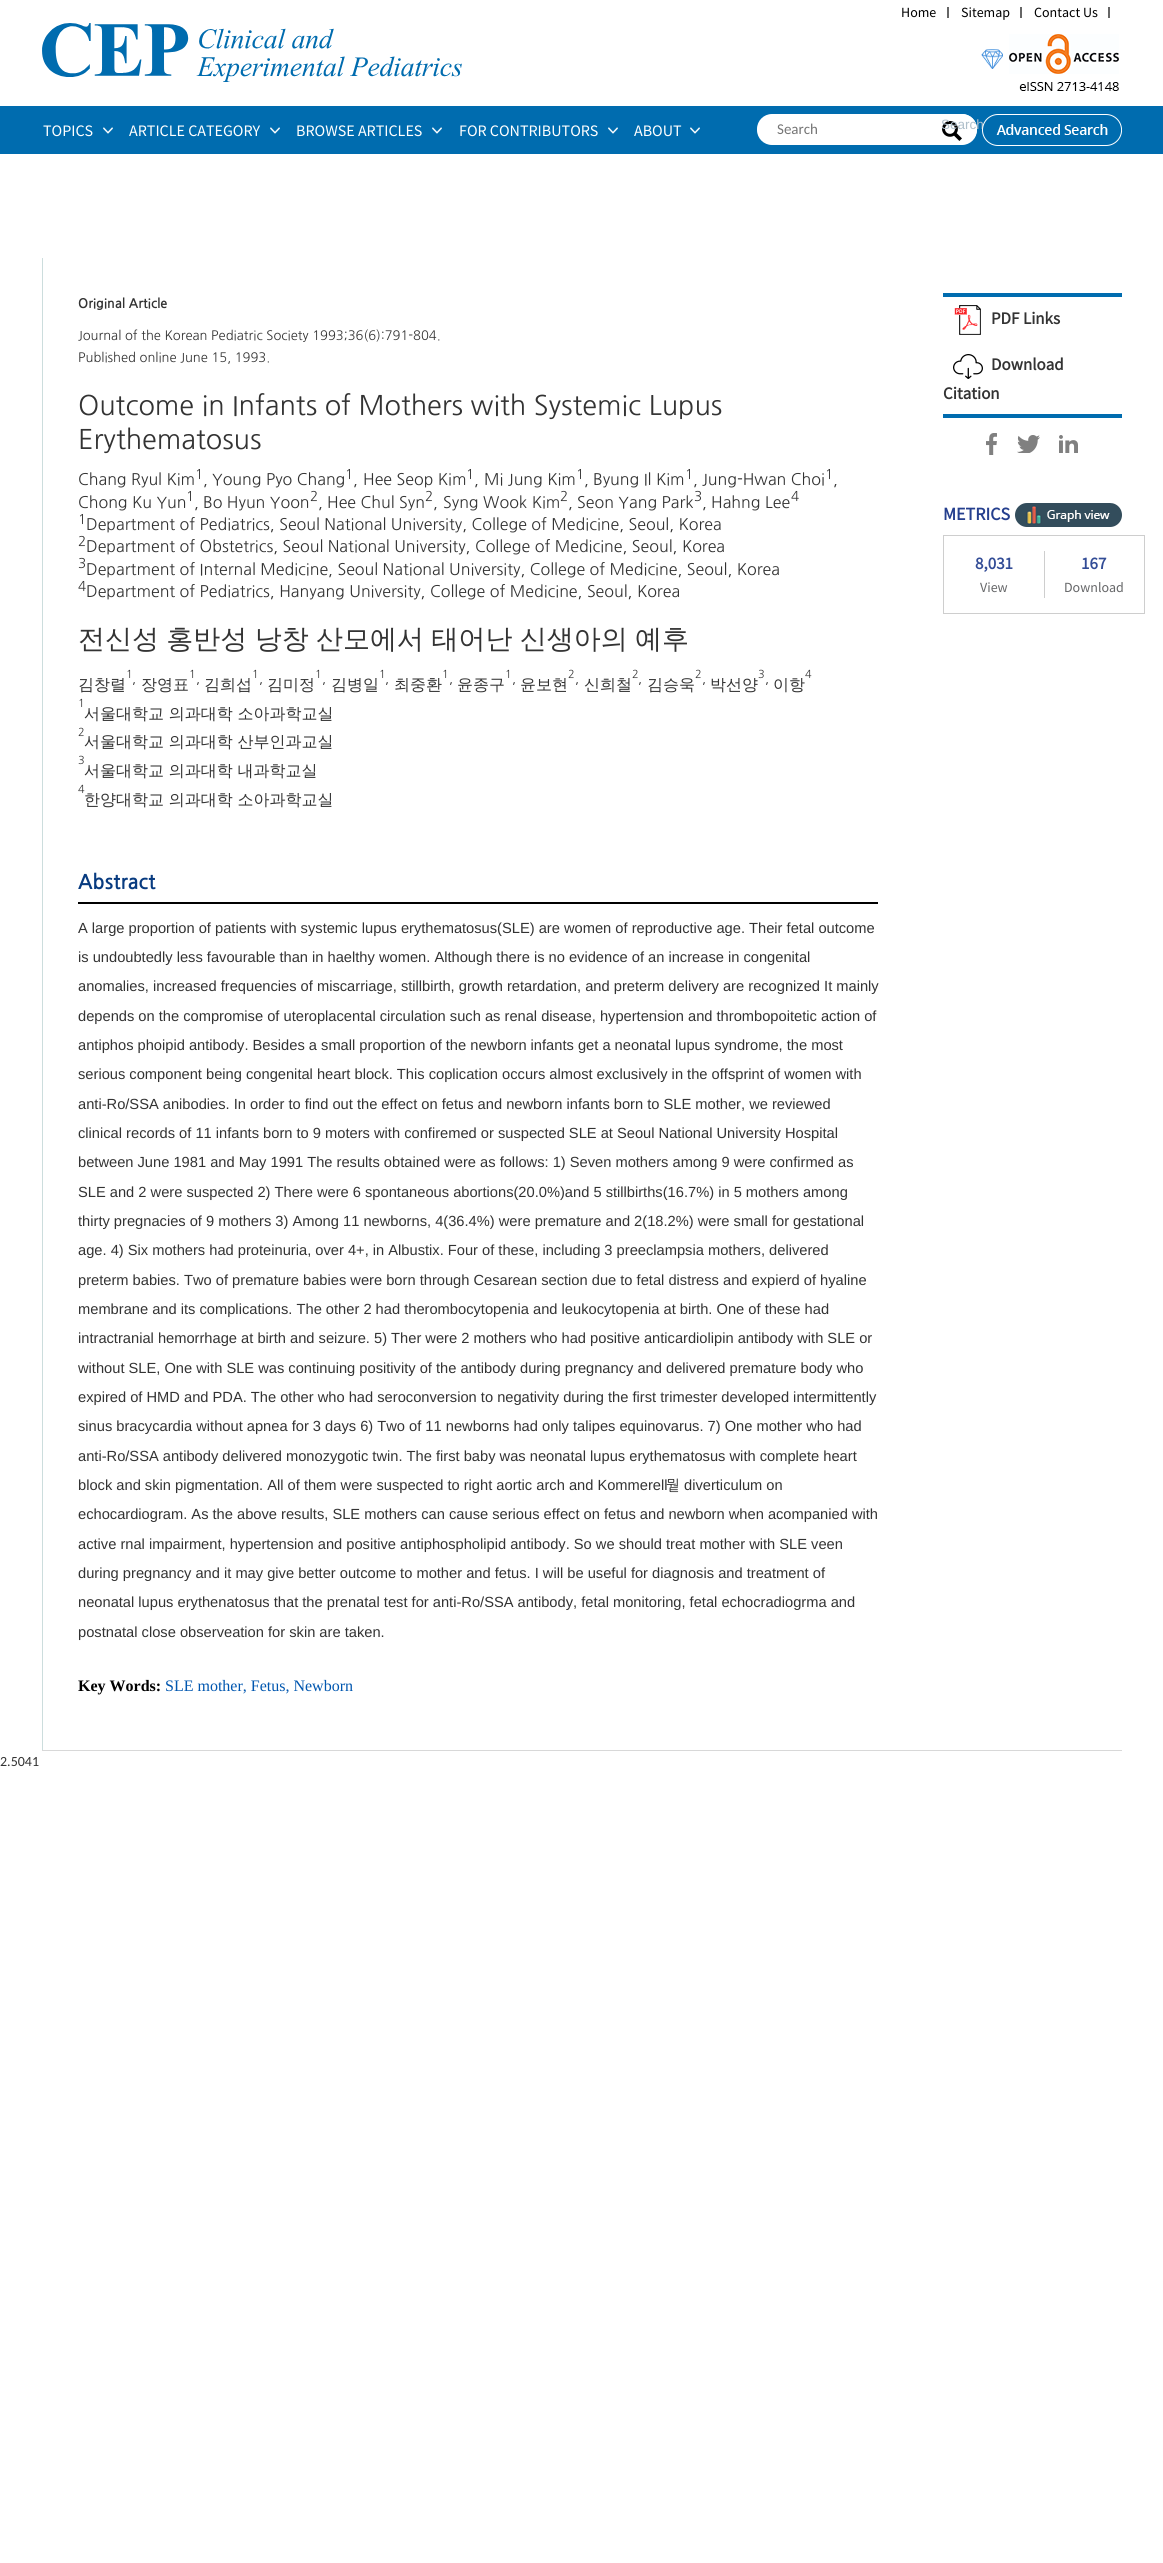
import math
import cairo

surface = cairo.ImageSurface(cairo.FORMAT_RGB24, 1163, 2563)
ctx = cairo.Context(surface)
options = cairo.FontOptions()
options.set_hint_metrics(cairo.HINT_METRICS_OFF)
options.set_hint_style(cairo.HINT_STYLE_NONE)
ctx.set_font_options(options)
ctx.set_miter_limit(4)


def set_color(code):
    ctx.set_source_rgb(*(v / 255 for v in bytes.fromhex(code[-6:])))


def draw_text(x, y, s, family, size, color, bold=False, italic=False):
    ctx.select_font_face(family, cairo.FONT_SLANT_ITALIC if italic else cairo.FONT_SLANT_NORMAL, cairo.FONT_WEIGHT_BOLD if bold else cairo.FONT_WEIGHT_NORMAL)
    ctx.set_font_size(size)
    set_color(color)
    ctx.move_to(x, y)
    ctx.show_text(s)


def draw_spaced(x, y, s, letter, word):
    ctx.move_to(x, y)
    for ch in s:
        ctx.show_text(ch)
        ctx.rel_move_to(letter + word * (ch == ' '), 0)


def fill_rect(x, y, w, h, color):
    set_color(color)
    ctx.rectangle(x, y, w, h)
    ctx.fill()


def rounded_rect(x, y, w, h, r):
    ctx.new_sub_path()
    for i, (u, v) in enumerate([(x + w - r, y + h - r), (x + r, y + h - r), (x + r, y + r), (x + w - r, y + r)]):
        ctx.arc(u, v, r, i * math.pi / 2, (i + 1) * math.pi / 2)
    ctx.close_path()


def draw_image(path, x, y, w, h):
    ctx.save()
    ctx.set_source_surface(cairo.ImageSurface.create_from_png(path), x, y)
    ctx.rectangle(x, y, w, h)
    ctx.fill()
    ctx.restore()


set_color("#ffffff")
ctx.paint()
draw_image("assets/img1.png", 0, 25, 1163, 129)
draw_text(901, 17, "Home", "Source Sans Pro", 14, "#000000")
fill_rect(947, 7, 2, 11, "#666666")
draw_text(961, 17, "Sitemap", "Source Sans Pro", 14, "#000000")
fill_rect(1020, 7, 2, 11, "#666666")
draw_text(1034, 17, "Contact Us", "Source Sans Pro", 14, "#000000")
fill_rect(1108, 7, 2, 11, "#666666")
draw_image("assets/img2.png", 42, 23, 420, 59)
draw_image("assets/img3.png", 981, 34, 138, 57)
draw_image("assets/img4.png", 103, 127, 10, 7)
draw_text(43, 136, "TOPICS", "Source Sans Pro", 16, "#ffffff")
draw_image("assets/img4.png", 270, 127, 10, 7)
draw_text(129, 136, "ARTICLE CATEGORY", "Source Sans Pro", 16, "#ffffff")
draw_image("assets/img4.png", 432, 127, 10, 7)
draw_text(296, 136, "BROWSE ARTICLES", "Source Sans Pro", 16, "#ffffff")
draw_image("assets/img4.png", 608, 127, 10, 7)
draw_text(459, 136, "FOR CONTRIBUTORS", "Source Sans Pro", 16, "#ffffff")
draw_image("assets/img4.png", 690, 127, 10, 7)
draw_text(634, 136, "ABOUT", "Source Sans Pro", 16, "#ffffff")
rounded_rect(757, 114, 220, 31, 15)
ctx.fill()
rounded_rect(767, 114, 210, 30, 15)
ctx.fill()
draw_text(777, 134, "Search", "Carlito", 15, "#757575")
draw_image("assets/img5.png", 942, 121, 20, 20)
draw_text(941, 129, "Search", "Liberation Sans", 13.5, "#afbfca")
draw_image("assets/img6.png", 982, 114, 140, 32)
fill_rect(42, 1750, 1080, 1, "#d8d8d8")
fill_rect(42, 258, 1, 1492, "#ccdddd")
draw_text(78, 308, "Original Article", "NanumGothic", 13, "#333333", bold=True)
draw_text(78, 340, "Journal of the Korean Pediatric Society 1993;36(6):791-804.", "NanumGothic", 13, "#333333")
draw_text(78, 362, "Published online June 15, 1993.", "NanumGothic", 13, "#333333")
draw_text(78, 415, "Outcome in Infants of Mothers with Systemic Lupus", "NanumGothic", 27, "#333333")
draw_text(78, 449, "Erythematosus", "NanumGothic", 27, "#333333")
draw_text(78, 485, "Chang Ryul Kim", "NanumGothic", 16, "#333333")
draw_text(195, 479, "1", "NanumGothic", 13.5, "#333333")
draw_text(203, 485, ",", "NanumGothic", 16, "#333333")
draw_text(212, 485, "Young Pyo Chang", "NanumGothic", 16, "#333333")
draw_text(345, 479, "1", "NanumGothic", 13.5, "#333333")
draw_text(353, 485, ",", "NanumGothic", 16, "#333333")
draw_text(363, 485, "Hee Seop Kim", "NanumGothic", 16, "#333333")
draw_text(466, 479, "1", "NanumGothic", 13.5, "#333333")
draw_text(474, 485, ",", "NanumGothic", 16, "#333333")
draw_text(484, 485, "Mi Jung Kim", "NanumGothic", 16, "#333333")
draw_text(576, 479, "1", "NanumGothic", 13.5, "#333333")
draw_text(584, 485, ",", "NanumGothic", 16, "#333333")
draw_text(593, 485, "Byung Il Kim", "NanumGothic", 16, "#333333")
draw_text(685, 479, "1", "NanumGothic", 13.5, "#333333")
draw_text(693, 485, ",", "NanumGothic", 16, "#333333")
draw_text(702, 485, "Jung-Hwan Choi", "NanumGothic", 16, "#333333")
draw_text(825, 479, "1", "NanumGothic", 13.5, "#333333")
draw_text(833, 485, ",", "NanumGothic", 16, "#333333")
draw_text(78, 508, "Chong Ku Yun", "NanumGothic", 16, "#333333")
draw_text(186, 501, "1", "NanumGothic", 13.5, "#333333")
draw_text(194, 508, ",", "NanumGothic", 16, "#333333")
draw_text(203, 508, "Bo Hyun Yoon", "NanumGothic", 16, "#333333")
draw_text(310, 501, "2", "NanumGothic", 13.5, "#333333")
draw_text(318, 508, ",", "NanumGothic", 16, "#333333")
draw_text(327, 508, "Hee Chul Syn", "NanumGothic", 16, "#333333")
draw_text(425, 501, "2", "NanumGothic", 13.5, "#333333")
draw_text(433, 508, ",", "NanumGothic", 16, "#333333")
draw_text(443, 508, "Syng Wook Kim", "NanumGothic", 16, "#333333")
draw_text(560, 501, "2", "NanumGothic", 13.5, "#333333")
draw_text(568, 508, ",", "NanumGothic", 16, "#333333")
draw_text(577, 508, "Seon Yang Park", "NanumGothic", 16, "#333333")
draw_text(694, 501, "3", "NanumGothic", 13.5, "#333333")
draw_text(702, 508, ",", "NanumGothic", 16, "#333333")
draw_text(711, 508, "Hahng Lee", "NanumGothic", 16, "#333333")
draw_text(791, 501, "4", "NanumGothic", 13.5, "#333333")
draw_text(78, 524, "1", "NanumGothic", 13.5, "#333333")
draw_text(86, 530, "Department of Pediatrics, Seoul National University, College of Medicine, Seoul, Korea", "NanumGothic", 16, "#333333")
draw_text(78, 546, "2", "NanumGothic", 13.5, "#333333")
draw_text(86, 552, "Department of Obstetrics, Seoul National University, College of Medicine, Seoul, Korea", "NanumGothic", 16, "#333333")
draw_text(78, 568, "3", "NanumGothic", 13.5, "#333333")
draw_text(86, 575, "Department of Internal Medicine, Seoul National University, College of Medicine, Seoul, Korea", "NanumGothic", 16, "#333333")
draw_text(78, 591, "4", "NanumGothic", 13.5, "#333333")
draw_text(86, 597, "Department of Pediatrics, Hanyang University, College of Medicine, Seoul, Korea", "NanumGothic", 16, "#333333")
ctx.select_font_face("WenQuanYi Zen Hei Medium")
ctx.set_font_size(27)
draw_spaced(78, 648, "전신성 홍반성 낭창 산모에서 태어난 신생아의 예후", 0, -0.75)
draw_text(126, 678, "1", "NanumGothic", 11, "#333333")
draw_text(189, 678, "1", "NanumGothic", 11, "#333333")
draw_text(252, 678, "1", "NanumGothic", 11, "#333333")
draw_text(315, 678, "1", "NanumGothic", 11, "#333333")
draw_text(379, 678, "1", "NanumGothic", 11, "#333333")
draw_text(442, 678, "1", "NanumGothic", 11, "#333333")
draw_text(505, 678, "1", "NanumGothic", 11, "#333333")
draw_text(568, 678, "2", "NanumGothic", 11, "#333333")
draw_text(632, 678, "2", "NanumGothic", 11, "#333333")
draw_text(695, 678, "2", "NanumGothic", 11, "#333333")
draw_text(758, 678, "3", "NanumGothic", 11, "#333333")
draw_text(805, 678, "4", "NanumGothic", 11, "#333333")
draw_text(78, 690, "김창렬", "WenQuanYi Zen Hei Medium", 16, "#333333")
draw_text(132, 683, ",", "NanumGothic", 13.5, "#333333")
draw_text(141, 690, "장영표", "WenQuanYi Zen Hei Medium", 16, "#333333")
draw_text(196, 683, ",", "NanumGothic", 13.5, "#333333")
draw_text(204, 690, "김희섭", "WenQuanYi Zen Hei Medium", 16, "#333333")
draw_text(259, 683, ",", "NanumGothic", 13.5, "#333333")
draw_text(267, 690, "김미정", "WenQuanYi Zen Hei Medium", 16, "#333333")
draw_text(322, 683, ",", "NanumGothic", 13.5, "#333333")
draw_text(331, 690, "김병일", "WenQuanYi Zen Hei Medium", 16, "#333333")
draw_text(385, 683, ",", "NanumGothic", 13.5, "#333333")
draw_text(394, 690, "최중환", "WenQuanYi Zen Hei Medium", 16, "#333333")
draw_text(449, 683, ",", "NanumGothic", 13.5, "#333333")
draw_text(457, 690, "윤종구", "WenQuanYi Zen Hei Medium", 16, "#333333")
draw_text(512, 683, ",", "NanumGothic", 13.5, "#333333")
draw_text(520, 690, "윤보현", "WenQuanYi Zen Hei Medium", 16, "#333333")
draw_text(575, 683, ",", "NanumGothic", 13.5, "#333333")
draw_text(584, 690, "신희철", "WenQuanYi Zen Hei Medium", 16, "#333333")
draw_text(638, 683, ",", "NanumGothic", 13.5, "#333333")
draw_text(647, 690, "김승욱", "WenQuanYi Zen Hei Medium", 16, "#333333")
draw_text(702, 683, ",", "NanumGothic", 13.5, "#333333")
draw_text(710, 690, "박선양", "WenQuanYi Zen Hei Medium", 16, "#333333")
draw_text(765, 683, ",", "NanumGothic", 13.5, "#333333")
draw_text(773, 690, "이항", "WenQuanYi Zen Hei Medium", 16, "#333333")
draw_text(78, 707, "1", "NanumGothic", 11, "#333333")
draw_text(84, 719, "서울대학교 의과대학 소아과학교실", "WenQuanYi Zen Hei Medium", 16, "#333333")
draw_text(78, 736, "2", "NanumGothic", 11, "#333333")
draw_text(84, 747, "서울대학교 의과대학 산부인과교실", "WenQuanYi Zen Hei Medium", 16, "#333333")
draw_text(78, 764, "3", "NanumGothic", 11, "#333333")
draw_text(84, 776, "서울대학교 의과대학 내과학교실", "WenQuanYi Zen Hei Medium", 16, "#333333")
draw_text(78, 793, "4", "NanumGothic", 11, "#333333")
draw_text(84, 805, "한양대학교 의과대학 소아과학교실", "WenQuanYi Zen Hei Medium", 16, "#333333")
fill_rect(78, 902, 800, 2, "#000000")
draw_text(78, 889, "Abstract", "NanumGothic", 20, "#083b80", bold=True)
draw_text(78, 933, "A large proportion of patients with systemic lupus erythematosus(SLE) are women of reproductive age. Their fetal outcome", "Liberation Sans", 14.67, "#333333")
draw_text(78, 962, "is undoubtedly less favourable than in haelthy women. Although there is no evidence of an increase in congenital", "Liberation Sans", 14.67, "#333333")
draw_text(78, 991, "anomalies, increased frequencies of miscarriage, stillbirth, growth retardation, and preterm delivery are recognized It mainly", "Liberation Sans", 14.67, "#333333")
draw_text(78, 1021, "depends on the compromise of uteroplacental circulation such as renal disease, hypertension and thrombopoitetic action of", "Liberation Sans", 14.67, "#333333")
draw_text(78, 1050, "antiphos phoipid antibody. Besides a small proportion of the newborn infants get a neonatal lupus syndrome, the most", "Liberation Sans", 14.67, "#333333")
draw_text(78, 1079, "serious component being congenital heart block. This coplication occurs almost exclusively in the offsprint of women with", "Liberation Sans", 14.67, "#333333")
draw_text(78, 1109, "anti-Ro/SSA anibodies. In order to find out the effect on fetus and newborn infants born to SLE mother, we reviewed", "Liberation Sans", 14.67, "#333333")
draw_text(78, 1138, "clinical records of 11 infants born to 9 moters with confiremed or suspected SLE at Seoul National University Hospital", "Liberation Sans", 14.67, "#333333")
draw_text(78, 1167, "between June 1981 and May 1991 The results obtained were as follows: 1) Seven mothers among 9 were confirmed as", "Liberation Sans", 14.67, "#333333")
draw_text(78, 1197, "SLE and 2 were suspected 2) There were 6 spontaneous abortions(20.0%)and 5 stillbirths(16.7%) in 5 mothers among", "Liberation Sans", 14.67, "#333333")
draw_text(78, 1226, "thirty pregnacies of 9 mothers 3) Among 11 newborns, 4(36.4%) were premature and 2(18.2%) were small for gestational", "Liberation Sans", 14.67, "#333333")
draw_text(78, 1255, "age. 4) Six mothers had proteinuria, over 4+, in Albustix. Four of these, including 3 preeclampsia mothers, delivered", "Liberation Sans", 14.67, "#333333")
draw_text(78, 1285, "preterm babies. Two of premature babies were born through Cesarean section due to fetal distress and expierd of hyaline", "Liberation Sans", 14.67, "#333333")
draw_text(78, 1314, "membrane and its complications. The other 2 had therombocytopenia and leukocytopenia at birth. One of these had", "Liberation Sans", 14.67, "#333333")
draw_text(78, 1343, "intractranial hemorrhage at birth and seizure. 5) Ther were 2 mothers who had positive anticardiolipin antibody with SLE or", "Liberation Sans", 14.67, "#333333")
draw_text(78, 1373, "without SLE, One with SLE was continuing positivity of the antibody during pregnancy and delivered premature body who", "Liberation Sans", 14.67, "#333333")
draw_text(78, 1402, "expired of HMD and PDA. The other who had seroconversion to negativity during the first trimester developed intermittently", "Liberation Sans", 14.67, "#333333")
draw_text(78, 1431, "sinus bracycardia without apnea for 3 days 6) Two of 11 newborns had only talipes equinovarus. 7) One mother who had", "Liberation Sans", 14.67, "#333333")
draw_text(78, 1461, "anti-Ro/SSA antibody delivered monozygotic twin. The first baby was neonatal lupus erythematosus with complete heart", "Liberation Sans", 14.67, "#333333")
draw_text(78, 1490, "block and skin pigmentation. All of them were suspected to right aortic arch and Kommerell", "Liberation Sans", 14.67, "#333333")
draw_text(666, 1490, "뭩", "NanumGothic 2", 14.67, "#333333")
draw_text(684, 1490, "diverticulum on", "Liberation Sans", 14.67, "#333333")
draw_text(78, 1519, "echocardiogram. As the above results, SLE mothers can cause serious effect on fetus and newborn when acompanied with", "Liberation Sans", 14.67, "#333333")
draw_text(78, 1549, "active rnal impairment, hypertension and positive antiphospholipid antibody. So we should treat mother with SLE veen", "Liberation Sans", 14.67, "#333333")
draw_text(78, 1578, "during pregnancy and it may give better outcome to mother and fetus. I will be useful for diagnosis and treatment of", "Liberation Sans", 14.67, "#333333")
draw_text(78, 1607, "neonatal lupus erythenatosus that the prenatal test for anti-Ro/SSA antibody, fetal monitoring, fetal echocradiogrma and", "Liberation Sans", 14.67, "#333333")
draw_text(78, 1637, "postnatal close observeation for skin are taken.", "Liberation Sans", 14.67, "#333333")
draw_text(78, 1691, "Key Words:", "Liberation Serif", 16, "#000000", bold=True)
draw_text(165, 1691, "SLE mother, Fetus, Newborn", "Liberation Serif", 16, "#0056af")
fill_rect(943, 293, 179, 4, "#006caf")
fill_rect(943, 414, 179, 4, "#006caf")
draw_image("assets/img7.png", 954, 305, 27, 30)
draw_text(991, 324, "PDF Links", "Source Sans Pro", 17, "#333333", bold=True)
draw_image("assets/img8.png", 953, 354, 30, 25)
draw_text(991, 370, "Download", "Source Sans Pro", 17, "#333333", bold=True)
draw_text(943, 399, "Citation", "Source Sans Pro", 17, "#333333", bold=True)
draw_image("assets/img9.png", 986, 433, 11, 22)
draw_image("assets/img10.png", 1017, 435, 23, 18)
draw_image("assets/img11.png", 1059, 435, 19, 18)
draw_text(943, 520, "METRICS", "Source Sans Pro", 18, "#253f8e", bold=True)
draw_image("assets/img12.png", 1015, 503, 107, 24)
fill_rect(943, 535, 202, 1, "#cecece")
fill_rect(1144, 535, 1, 79, "#cecece")
fill_rect(943, 535, 1, 79, "#cecece")
fill_rect(944, 613, 200, 1, "#cecece")
draw_text(975, 569, "8,031", "Source Sans Pro", 17, "#324c96", bold=True)
draw_text(980, 592, "View", "Source Sans Pro", 14, "#666769")
fill_rect(1044, 551, 1, 47, "#cecece")
draw_text(1081, 569, "167", "Source Sans Pro", 17, "#324c96", bold=True)
draw_text(1064, 592, "Download", "Source Sans Pro", 14, "#666769")
draw_text(0, 1766, "2.5041", "Carlito", 14, "#333333")
surface.write_to_png("output.png")
